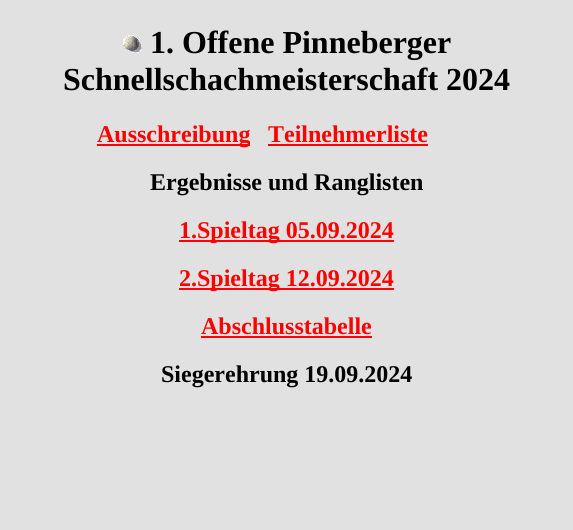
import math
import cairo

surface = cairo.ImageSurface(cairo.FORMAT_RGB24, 573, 530)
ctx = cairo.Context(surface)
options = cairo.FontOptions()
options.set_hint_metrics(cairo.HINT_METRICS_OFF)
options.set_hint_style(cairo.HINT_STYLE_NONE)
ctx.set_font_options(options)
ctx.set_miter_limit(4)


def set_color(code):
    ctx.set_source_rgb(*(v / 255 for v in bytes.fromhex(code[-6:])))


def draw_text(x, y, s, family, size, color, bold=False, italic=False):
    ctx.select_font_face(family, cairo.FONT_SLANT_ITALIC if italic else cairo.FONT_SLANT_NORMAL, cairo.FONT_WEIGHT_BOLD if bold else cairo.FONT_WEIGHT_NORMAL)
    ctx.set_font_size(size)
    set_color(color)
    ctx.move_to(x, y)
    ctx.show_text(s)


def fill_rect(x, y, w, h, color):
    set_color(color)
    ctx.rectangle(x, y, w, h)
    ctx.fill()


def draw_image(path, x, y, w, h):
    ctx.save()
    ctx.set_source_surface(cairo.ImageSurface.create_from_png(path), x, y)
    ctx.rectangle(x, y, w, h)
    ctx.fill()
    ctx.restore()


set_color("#e1e1e1")
ctx.paint()
draw_image("assets/img1.png", 123, 35, 19, 18)
draw_text(150, 53, "1. Offene Pinneberger", "Liberation Serif", 32, "#000000", bold=True)
draw_text(63, 90, "Schnellschachmeisterschaft 2024", "Liberation Serif", 32, "#000000", bold=True)
fill_rect(97, 144, 153, 2, "#ff0000")
draw_text(97, 142, "Ausschreibung", "Liberation Serif", 24, "#ff0000", bold=True)
draw_text(268, 142, "Teilnehmerliste", "Liberation Serif", 24, "#ff0000", bold=True)
fill_rect(268, 144, 160, 2, "#ff0000")
draw_text(150, 190, "Ergebnisse und Ranglisten", "Liberation Serif", 24, "#000000", bold=True)
fill_rect(179, 240, 215, 2, "#ff0000")
draw_text(179, 238, "1.Spieltag 05.09.2024", "Liberation Serif", 24, "#ff0000", bold=True)
fill_rect(179, 288, 215, 2, "#ff0000")
draw_text(179, 286, "2.Spieltag 12.09.2024", "Liberation Serif", 24, "#ff0000", bold=True)
draw_text(201, 334, "Abschlusstabelle", "Liberation Serif", 24, "#ff0000", bold=True)
fill_rect(201, 336, 171, 2, "#ff0000")
draw_text(161, 382, "Siegerehrung 19.09.2024", "Liberation Serif", 24, "#000000", bold=True)
surface.write_to_png("output.png")
